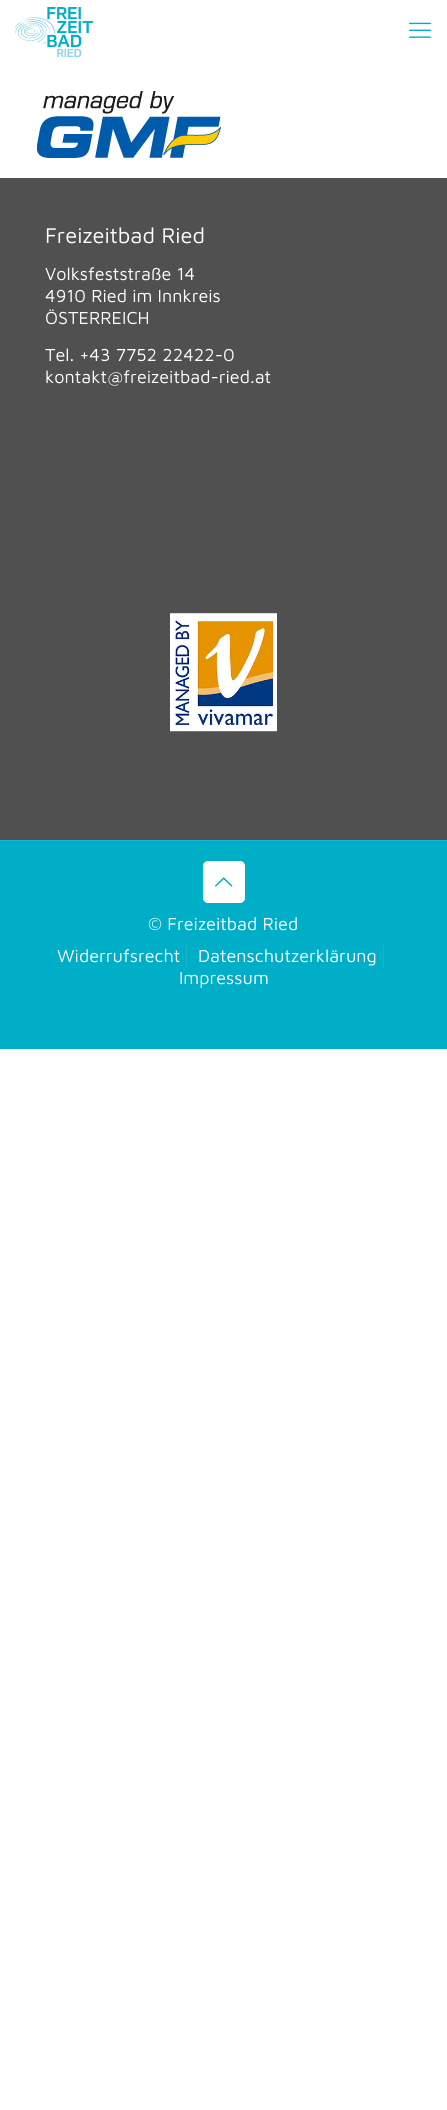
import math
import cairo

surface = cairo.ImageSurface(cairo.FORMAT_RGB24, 447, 2110)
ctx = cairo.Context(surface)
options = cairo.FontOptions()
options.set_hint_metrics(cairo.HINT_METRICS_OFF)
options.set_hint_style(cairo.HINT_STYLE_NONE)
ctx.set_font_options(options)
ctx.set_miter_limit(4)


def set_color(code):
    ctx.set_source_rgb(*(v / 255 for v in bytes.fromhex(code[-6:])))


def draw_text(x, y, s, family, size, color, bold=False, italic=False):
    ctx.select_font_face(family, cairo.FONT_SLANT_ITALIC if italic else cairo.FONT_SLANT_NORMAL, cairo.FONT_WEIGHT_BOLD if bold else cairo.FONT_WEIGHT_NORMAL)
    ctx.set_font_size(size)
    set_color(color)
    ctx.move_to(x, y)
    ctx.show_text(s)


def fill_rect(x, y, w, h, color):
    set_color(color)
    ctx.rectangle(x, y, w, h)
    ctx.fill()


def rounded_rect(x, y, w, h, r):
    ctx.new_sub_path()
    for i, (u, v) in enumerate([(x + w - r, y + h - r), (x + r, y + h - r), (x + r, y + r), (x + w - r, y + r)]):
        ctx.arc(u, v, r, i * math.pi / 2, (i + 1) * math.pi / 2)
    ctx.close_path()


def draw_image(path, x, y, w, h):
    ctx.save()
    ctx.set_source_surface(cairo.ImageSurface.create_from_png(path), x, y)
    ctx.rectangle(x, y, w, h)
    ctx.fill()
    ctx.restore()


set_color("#ffffff")
ctx.paint()
draw_image("assets/img1.png", 15, 7, 78, 50)
draw_image("assets/img2.png", 409, 22, 22, 16)
draw_image("assets/img3.png", 37, 91, 184, 67)
fill_rect(0, 841, 447, 208, "#00aec7")
fill_rect(0, 178, 447, 662, "#505050")
draw_text(45, 243, "Freizeitbad Ried", "Maven Pro", 22, "#ffffff")
draw_text(45, 280, "Volksfeststraße 14", "Maven Pro", 18, "#ffffff")
draw_text(45, 302, "4910 Ried im Innkreis", "Maven Pro", 18, "#ffffff")
draw_text(45, 324, "ÖSTERREICH", "Maven Pro", 18, "#ffffff")
draw_text(45, 361, "Tel. +43 7752 22422-0", "Maven Pro", 18, "#ffffff")
draw_text(45, 383, "kontakt@freizeitbad-ried.at", "Maven Pro", 18, "#ffffff")
draw_image("assets/img4.png", 170, 613, 107, 119)
fill_rect(0, 840, 447, 1, "#1ab6cd")
set_color("#ffffff")
rounded_rect(203, 861, 42, 42, 5)
ctx.fill()
draw_image("assets/img5.png", 215, 877, 18, 10)
draw_text(148, 930, "© Freizeitbad Ried", "Maven Pro", 18, "#ffffff")
fill_rect(186, 945, 1, 22, "#1ab6cd")
draw_text(57, 962, "Widerrufsrecht", "Maven Pro", 18, "#ffffff")
fill_rect(383, 945, 1, 22, "#1ab6cd")
draw_text(198, 962, "Datenschutzerklärung", "Maven Pro", 18, "#ffffff")
draw_text(179, 984, "Impressum", "Maven Pro", 18, "#ffffff")
surface.write_to_png("output.png")
